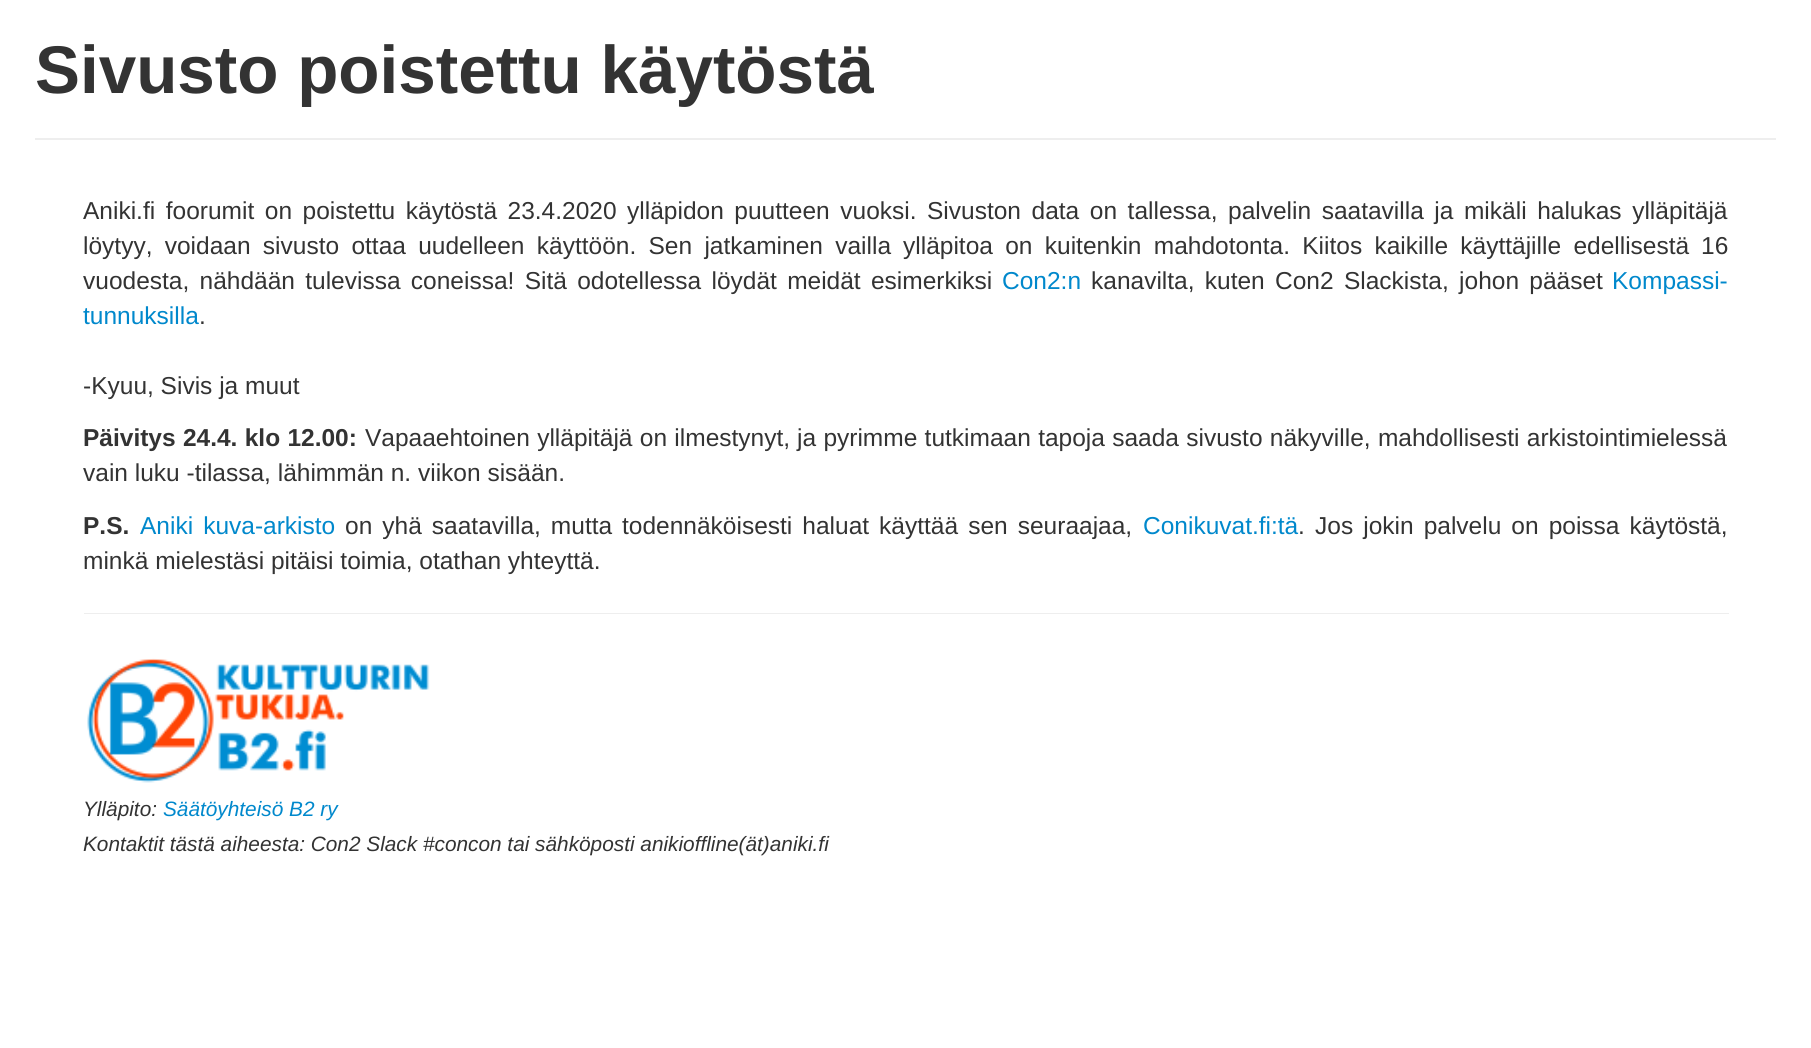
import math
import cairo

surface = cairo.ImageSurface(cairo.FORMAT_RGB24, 1811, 1048)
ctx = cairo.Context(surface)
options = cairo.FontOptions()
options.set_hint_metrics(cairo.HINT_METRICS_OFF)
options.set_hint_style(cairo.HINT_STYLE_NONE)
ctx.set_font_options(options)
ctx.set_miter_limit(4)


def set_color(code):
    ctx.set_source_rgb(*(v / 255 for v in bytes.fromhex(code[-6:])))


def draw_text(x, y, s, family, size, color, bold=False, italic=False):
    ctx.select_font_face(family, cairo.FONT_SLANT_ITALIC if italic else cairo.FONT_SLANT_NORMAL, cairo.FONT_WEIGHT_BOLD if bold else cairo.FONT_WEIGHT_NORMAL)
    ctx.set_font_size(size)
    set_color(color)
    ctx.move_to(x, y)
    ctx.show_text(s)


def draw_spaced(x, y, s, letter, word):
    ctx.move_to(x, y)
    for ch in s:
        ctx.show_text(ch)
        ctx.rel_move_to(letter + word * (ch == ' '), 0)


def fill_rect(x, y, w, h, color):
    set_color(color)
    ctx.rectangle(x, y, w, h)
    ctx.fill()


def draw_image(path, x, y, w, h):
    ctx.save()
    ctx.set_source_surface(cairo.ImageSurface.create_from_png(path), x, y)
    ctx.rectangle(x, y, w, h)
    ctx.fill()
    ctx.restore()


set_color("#ffffff")
ctx.paint()
fill_rect(35, 138, 1741, 2, "#eeeeee")
draw_text(35, 93, "Sivusto poistettu käytöstä", "Liberation Sans", 67.4, "#333333", bold=True)
ctx.select_font_face("Liberation Sans")
ctx.set_font_size(24.5)
draw_spaced(83, 219, "Aniki.fi foorumit on poistettu käytöstä 23.4.2020 ylläpidon puutteen vuoksi.", 0, 3.75)
draw_spaced(927, 219, "Sivuston data on tallessa, palvelin saatavilla ja mikäli halukas ylläpitäjä", 0, 3.75)
draw_spaced(83, 254, "löytyy, voidaan sivusto ottaa uudelleen käyttöön. Sen jatkaminen vailla", 0, 5.5)
draw_spaced(903, 254, "ylläpitoa on kuitenkin mahdotonta. Kiitos kaikille käyttäjille edellisestä", 0, 5.5)
draw_text(1701, 254, "16", "Liberation Sans", 24.5, "#333333")
draw_spaced(83, 289, "vuodesta, nähdään tulevissa coneissa! Sitä odotellessa löydät meidät esimerkiksi", 0, 3.5)
draw_text(1002, 289, "Con2:n", "Liberation Sans", 24.5, "#0088cc")
set_color("#333333")
draw_spaced(1091, 289, "kanavilta, kuten Con2 Slackista, johon pääset", 0, 3.5)
draw_text(1612, 289, "Kompassi-", "Liberation Sans", 24.5, "#0088cc")
draw_text(83, 324, "tunnuksilla", "Liberation Sans", 24.5, "#0088cc")
draw_text(199, 324, ".", "Liberation Sans", 24.5, "#333333")
draw_text(83, 394, "-Kyuu, Sivis ja muut", "Liberation Sans", 24.5, "#333333")
ctx.select_font_face("Liberation Sans", cairo.FONT_SLANT_NORMAL, cairo.FONT_WEIGHT_BOLD)
draw_spaced(83, 446, "Päivitys 24.4. klo 12.00:", 0, 0.5)
ctx.select_font_face("Liberation Sans")
draw_spaced(365, 446, "Vapaaehtoinen ylläpitäjä on ilmestynyt,", 0, 0.5)
draw_spaced(797, 446, "ja pyrimme tutkimaan tapoja saada sivusto näkyville, mahdollisesti arkistointimielessä", 0, 0.5)
draw_text(83, 481, "vain luku -tilassa, lähimmän n. viikon sisään.", "Liberation Sans", 24.5, "#333333")
draw_text(83, 534, "P.S.", "Liberation Sans", 24.5, "#333333", bold=True)
ctx.select_font_face("Liberation Sans")
set_color("#0088cc")
draw_spaced(140, 534, "Aniki kuva-arkisto", 0, 3.25)
set_color("#333333")
draw_spaced(345, 534, "on yhä saatavilla, mutta", 0, 3.25)
draw_spaced(622, 534, "todennäköisesti haluat käyttää sen seuraajaa,", 0, 3.25)
draw_text(1143, 534, "Conikuvat.fi:tä", "Liberation Sans", 24.5, "#0088cc")
draw_text(1298, 534, ".", "Liberation Sans", 24.5, "#333333")
draw_spaced(1315, 534, "Jos jokin palvelu on poissa käytöstä,", 0, 3.25)
draw_text(83, 569, "minkä mielestäsi pitäisi toimia, otathan yhteyttä.", "Liberation Sans", 24.5, "#333333")
fill_rect(84, 613, 1645, 1, "#eeeeee")
draw_image("assets/img1.png", 87, 658, 343, 125)
draw_text(83, 816, "Ylläpito:", "Liberation Sans", 20.8, "#333333", italic=True)
draw_text(163, 816, "Säätöyhteisö B2 ry", "Liberation Sans", 20.8, "#0088cc", italic=True)
draw_text(83, 851, "Kontaktit tästä aiheesta: Con2 Slack #concon tai sähköposti anikioffline(ät)aniki.fi", "Liberation Sans", 20.8, "#333333", italic=True)
surface.write_to_png("output.png")
